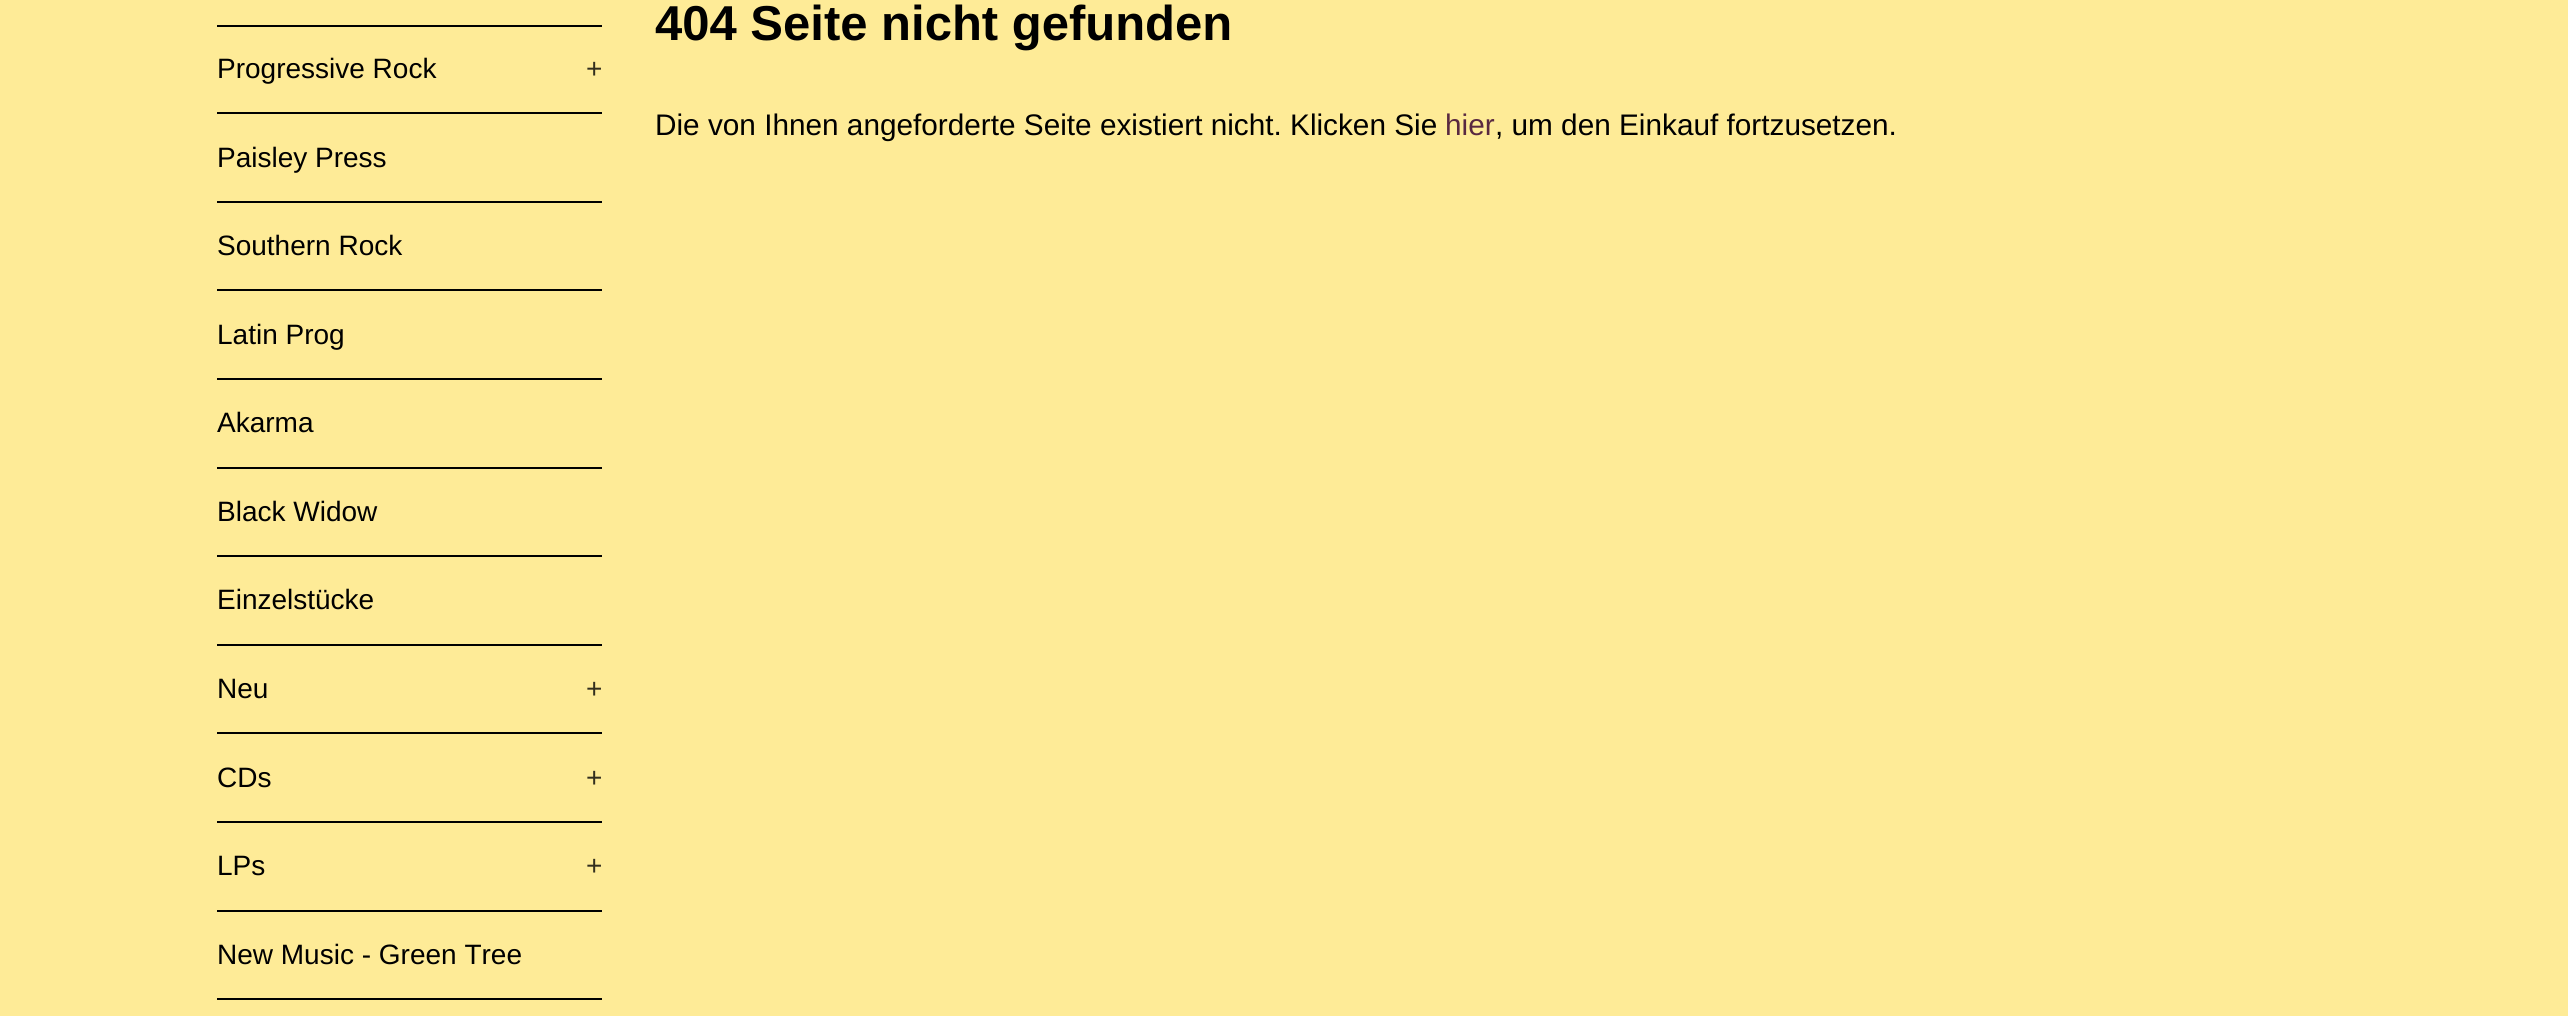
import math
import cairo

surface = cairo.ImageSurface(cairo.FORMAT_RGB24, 2568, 1016)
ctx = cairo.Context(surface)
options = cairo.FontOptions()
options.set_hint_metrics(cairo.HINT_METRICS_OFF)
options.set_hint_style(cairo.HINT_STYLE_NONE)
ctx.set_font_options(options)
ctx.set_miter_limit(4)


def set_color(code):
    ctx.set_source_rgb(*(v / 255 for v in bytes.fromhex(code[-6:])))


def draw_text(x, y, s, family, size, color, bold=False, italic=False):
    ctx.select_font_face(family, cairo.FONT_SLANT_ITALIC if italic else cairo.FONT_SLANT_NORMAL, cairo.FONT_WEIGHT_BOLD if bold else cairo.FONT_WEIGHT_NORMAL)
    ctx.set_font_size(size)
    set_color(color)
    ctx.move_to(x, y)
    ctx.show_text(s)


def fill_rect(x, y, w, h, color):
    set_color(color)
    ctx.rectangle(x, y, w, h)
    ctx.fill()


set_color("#feeb97")
ctx.paint()
fill_rect(217, 25, 385, 2, "#000000")
fill_rect(217, 112, 385, 2, "#000000")
draw_text(217, 78, "Progressive Rock", "Liberation Sans", 28, "#000000")
draw_text(586, 78, "+", "Liberation Sans", 28, "#332f1e")
fill_rect(217, 201, 385, 2, "#000000")
draw_text(217, 167, "Paisley Press", "Liberation Sans", 28, "#000000")
fill_rect(217, 289, 385, 2, "#000000")
draw_text(217, 255, "Southern Rock", "Liberation Sans", 28, "#000000")
fill_rect(217, 378, 385, 2, "#000000")
draw_text(217, 344, "Latin Prog", "Liberation Sans", 28, "#000000")
fill_rect(217, 467, 385, 2, "#000000")
draw_text(217, 432, "Akarma", "Liberation Sans", 28, "#000000")
fill_rect(217, 555, 385, 2, "#000000")
draw_text(217, 521, "Black Widow", "Liberation Sans", 28, "#000000")
fill_rect(217, 644, 385, 2, "#000000")
draw_text(217, 609, "Einzelstücke", "Liberation Sans", 28, "#000000")
fill_rect(217, 732, 385, 2, "#000000")
draw_text(217, 698, "Neu", "Liberation Sans", 28, "#000000")
draw_text(586, 698, "+", "Liberation Sans", 28, "#332f1e")
fill_rect(217, 821, 385, 2, "#000000")
draw_text(217, 787, "CDs", "Liberation Sans", 28, "#000000")
draw_text(586, 787, "+", "Liberation Sans", 28, "#332f1e")
fill_rect(217, 910, 385, 2, "#000000")
draw_text(217, 875, "LPs", "Liberation Sans", 28, "#000000")
draw_text(586, 875, "+", "Liberation Sans", 28, "#332f1e")
fill_rect(217, 998, 385, 2, "#000000")
draw_text(217, 964, "New Music - Green Tree", "Liberation Sans", 28, "#000000")
draw_text(655, 40, "404 Seite nicht gefunden", "Liberation Sans", 49, "#000000", bold=True)
draw_text(655, 135, "Die von Ihnen angeforderte Seite existiert nicht. Klicken Sie", "Liberation Sans", 29.75, "#000000")
draw_text(1445, 135, "hier", "Liberation Sans", 29.75, "#592941")
draw_text(1495, 135, ", um den Einkauf fortzusetzen.", "Liberation Sans", 29.75, "#000000")
surface.write_to_png("output.png")
